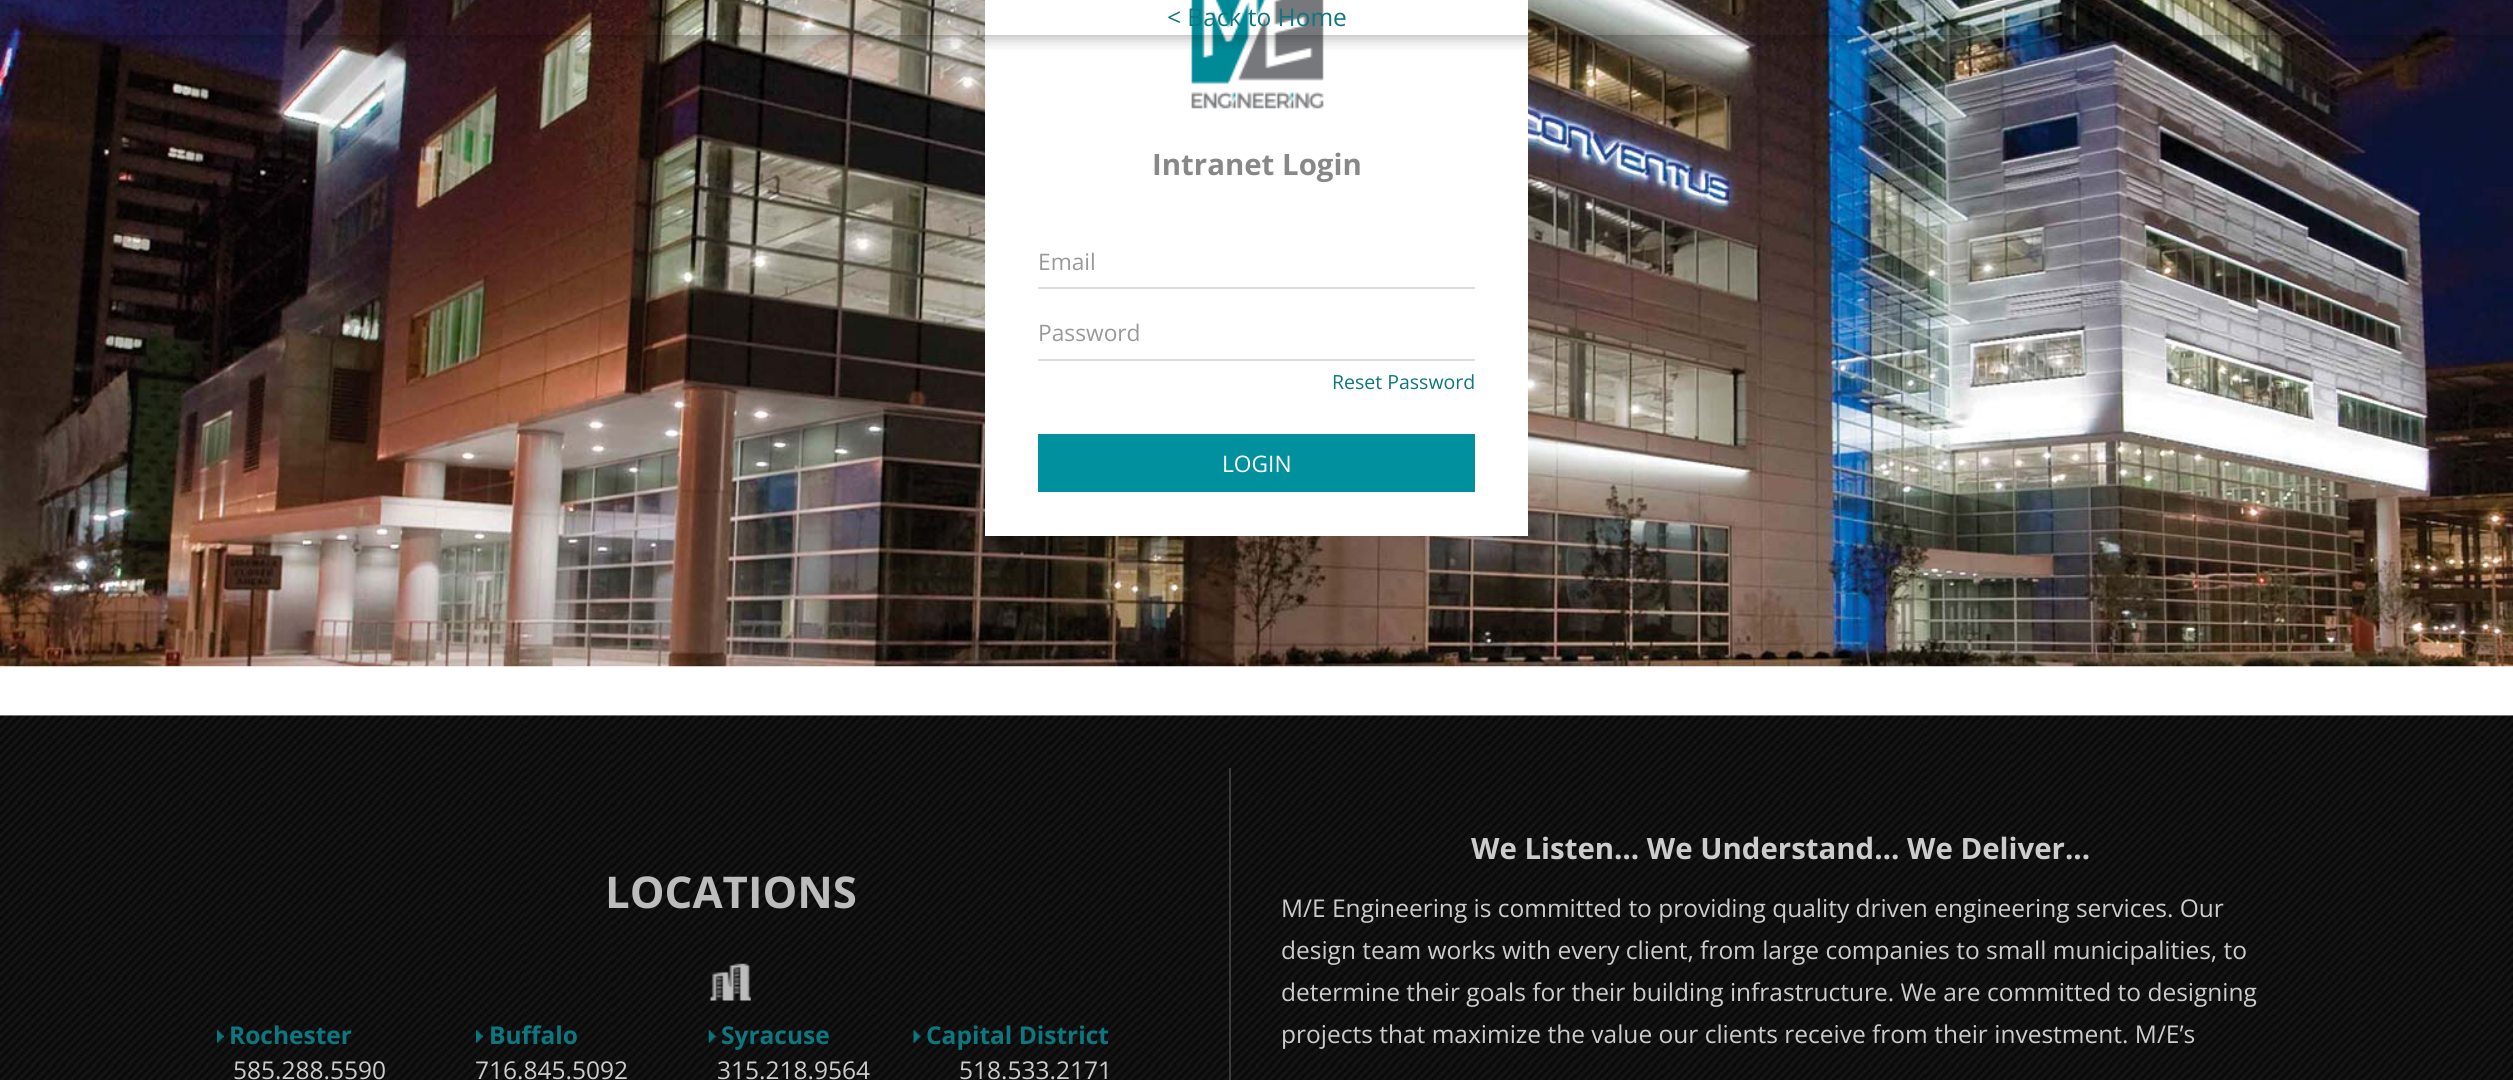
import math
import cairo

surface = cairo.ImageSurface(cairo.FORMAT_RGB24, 2513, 1080)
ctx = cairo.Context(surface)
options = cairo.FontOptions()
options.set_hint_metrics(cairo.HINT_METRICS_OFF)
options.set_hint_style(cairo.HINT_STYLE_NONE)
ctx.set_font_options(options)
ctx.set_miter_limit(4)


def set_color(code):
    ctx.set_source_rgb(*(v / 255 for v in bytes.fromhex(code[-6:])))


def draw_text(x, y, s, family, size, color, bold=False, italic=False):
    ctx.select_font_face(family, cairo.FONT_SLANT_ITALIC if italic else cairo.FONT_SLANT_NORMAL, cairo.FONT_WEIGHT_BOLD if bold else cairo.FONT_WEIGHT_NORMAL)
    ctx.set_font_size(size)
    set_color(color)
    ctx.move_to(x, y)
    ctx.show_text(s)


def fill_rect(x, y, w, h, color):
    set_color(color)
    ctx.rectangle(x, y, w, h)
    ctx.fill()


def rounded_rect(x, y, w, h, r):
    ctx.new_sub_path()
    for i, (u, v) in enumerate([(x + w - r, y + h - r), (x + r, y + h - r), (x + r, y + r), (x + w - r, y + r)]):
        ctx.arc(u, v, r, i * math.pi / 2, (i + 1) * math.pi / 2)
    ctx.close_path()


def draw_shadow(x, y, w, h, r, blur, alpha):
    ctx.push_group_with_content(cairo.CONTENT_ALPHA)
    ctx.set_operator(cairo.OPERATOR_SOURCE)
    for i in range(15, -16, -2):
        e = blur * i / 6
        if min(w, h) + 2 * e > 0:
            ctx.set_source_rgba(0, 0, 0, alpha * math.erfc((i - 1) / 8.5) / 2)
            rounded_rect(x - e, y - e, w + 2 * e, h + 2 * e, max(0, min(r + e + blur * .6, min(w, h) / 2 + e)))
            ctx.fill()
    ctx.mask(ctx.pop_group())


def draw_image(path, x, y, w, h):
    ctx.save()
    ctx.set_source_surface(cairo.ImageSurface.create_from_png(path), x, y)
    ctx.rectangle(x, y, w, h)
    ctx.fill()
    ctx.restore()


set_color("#ffffff")
ctx.paint()
draw_image("assets/img1.png", 0, 0, 2513, 667)
fill_rect(985, 0, 543, 536, "#ffffff")
draw_image("assets/img2.png", 1191, 0, 133, 109)
ctx.save()
ctx.rectangle(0, 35, 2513, 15)
ctx.clip()
set_color("#000000")
draw_shadow(0, 0, 2513, 35, 0, 9, 0.4)
ctx.restore()
draw_text(1167, 26, "< Back to Home", "Open Sans", 24.5, "#0c777f")
draw_text(1152, 175, "Intranet Login", "Open Sans", 29.4, "#888888", bold=True)
fill_rect(1038, 287, 437, 2, "#dddddd")
draw_text(1038, 270, "Email", "Open Sans", 22.75, "#999999")
fill_rect(1038, 359, 437, 2, "#dddddd")
draw_text(1038, 341, "Password", "Open Sans", 22.75, "#999999")
draw_text(1332, 389, "Reset Password", "Open Sans", 19.5, "#0c777f")
fill_rect(1038, 434, 437, 58, "#01909e")
draw_text(1222, 472, "LOGIN", "Open Sans", 22.75, "#ffffff")
draw_image("assets/img3.png", 0, 715, 2513, 365)
fill_rect(1229, 768, 2, 312, "#3d3d3d")
draw_text(605, 908, "LOCATIONS", "Open Sans", 43.75, "#bcbcbc", bold=True)
draw_image("assets/img4.png", 710, 963, 41, 38)
draw_image("assets/img5.png", 217, 1030, 7, 13)
draw_text(229, 1044, "Rochester", "Open Sans", 24.5, "#0c777f", bold=True)
draw_text(233, 1079, "585.288.5590", "Open Sans", 24.5, "#cccccc")
draw_image("assets/img6.png", 476, 1030, 7, 13)
draw_text(489, 1044, "Buffalo", "Open Sans", 24.5, "#0c777f", bold=True)
draw_text(475, 1079, "716.845.5092", "Open Sans", 24.5, "#cccccc")
draw_image("assets/img7.png", 708, 1030, 8, 13)
draw_text(721, 1044, "Syracuse", "Open Sans", 24.5, "#0c777f", bold=True)
draw_text(717, 1079, "315.218.9564", "Open Sans", 24.5, "#cccccc")
draw_image("assets/img8.png", 913, 1030, 8, 13)
draw_text(926, 1044, "Capital District", "Open Sans", 24.5, "#0c777f", bold=True)
draw_text(959, 1079, "518.533.2171", "Open Sans", 24.5, "#cccccc")
draw_text(1471, 859, "We Listen… We Understand… We Deliver...", "Open Sans", 29.4, "#cccccc", bold=True)
draw_text(1281, 917, "M/E Engineering is committed to providing quality driven engineering services. Our", "Open Sans", 24.5, "#cccccc")
draw_text(1281, 959, "design team works with every client, from large companies to small municipalities, to", "Open Sans", 24.5, "#cccccc")
draw_text(1281, 1001, "determine their goals for their building infrastructure. We are committed to designing", "Open Sans", 24.5, "#cccccc")
draw_text(1281, 1043, "projects that maximize the value our clients receive from their investment. M/E’s", "Open Sans", 24.5, "#cccccc")
surface.write_to_png("output.png")
